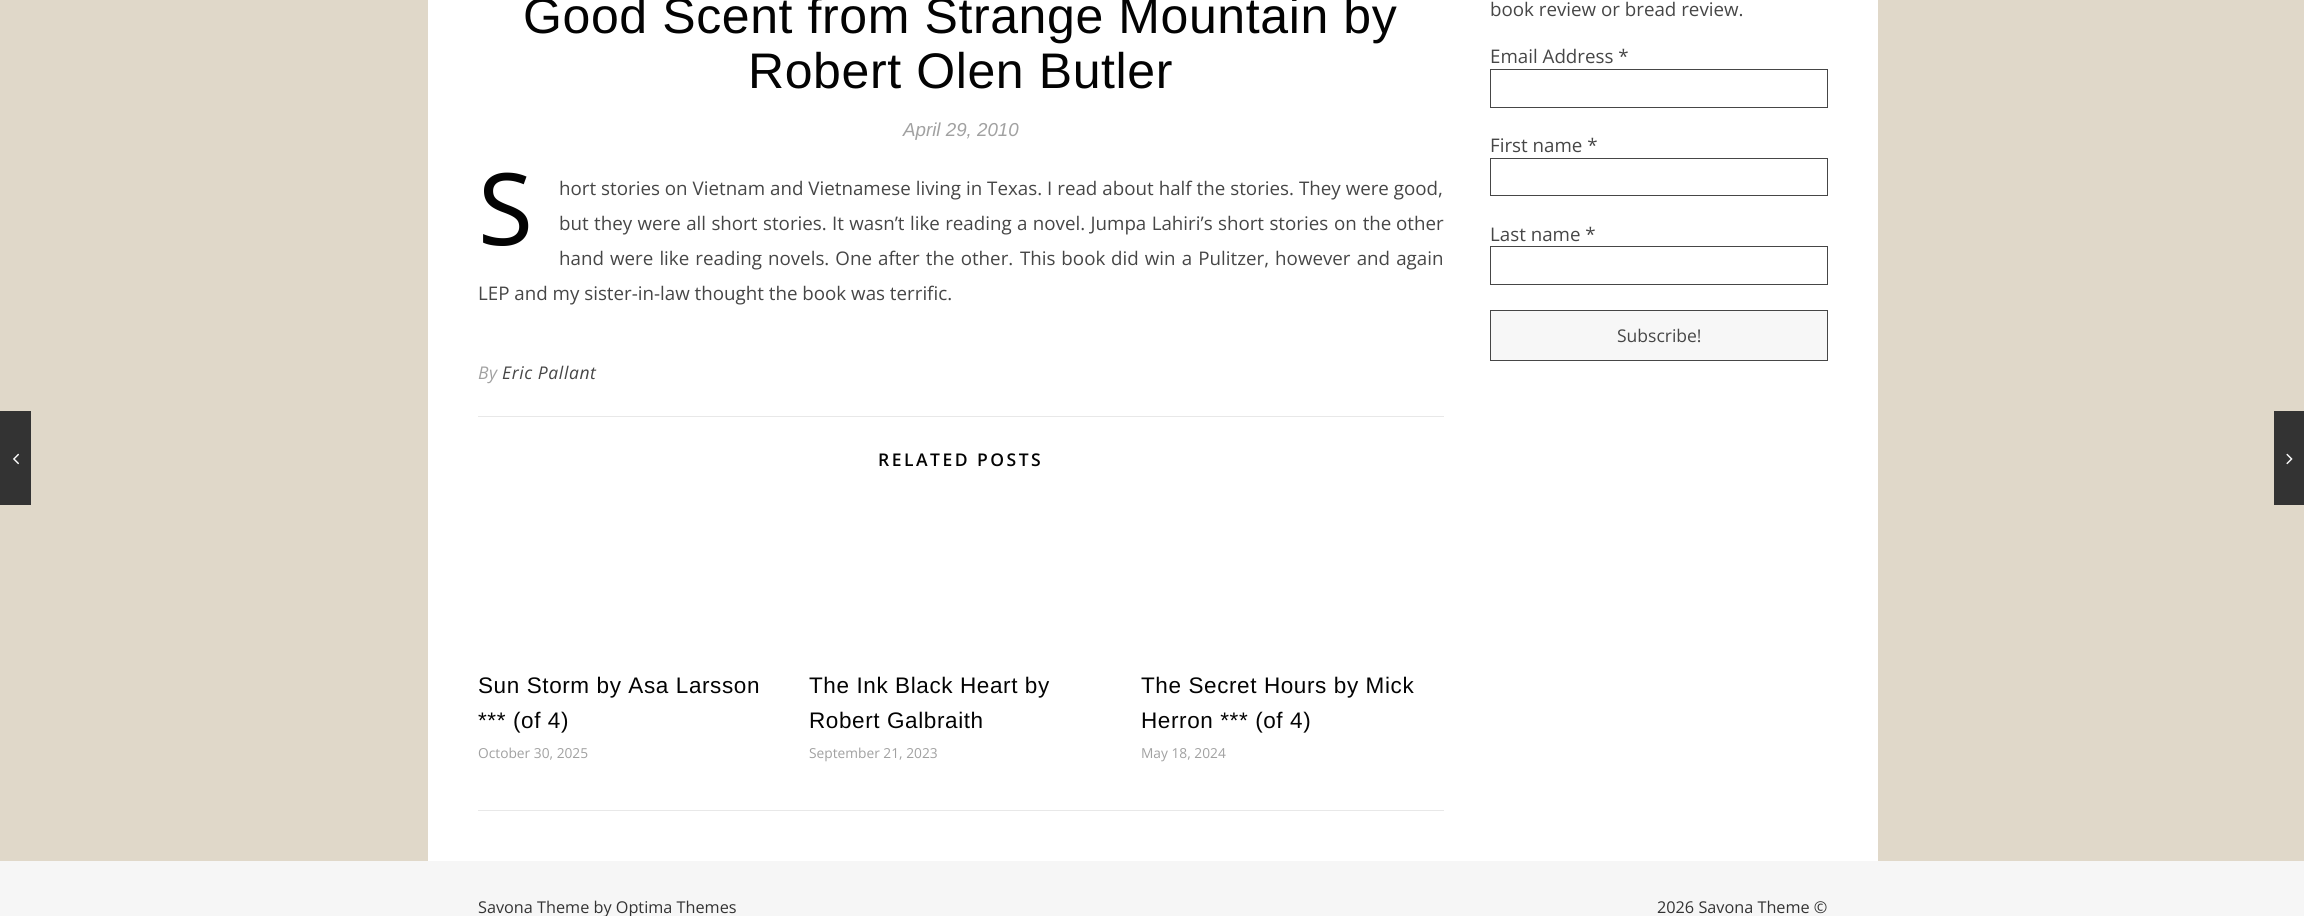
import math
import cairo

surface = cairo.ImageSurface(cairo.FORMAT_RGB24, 2304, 916)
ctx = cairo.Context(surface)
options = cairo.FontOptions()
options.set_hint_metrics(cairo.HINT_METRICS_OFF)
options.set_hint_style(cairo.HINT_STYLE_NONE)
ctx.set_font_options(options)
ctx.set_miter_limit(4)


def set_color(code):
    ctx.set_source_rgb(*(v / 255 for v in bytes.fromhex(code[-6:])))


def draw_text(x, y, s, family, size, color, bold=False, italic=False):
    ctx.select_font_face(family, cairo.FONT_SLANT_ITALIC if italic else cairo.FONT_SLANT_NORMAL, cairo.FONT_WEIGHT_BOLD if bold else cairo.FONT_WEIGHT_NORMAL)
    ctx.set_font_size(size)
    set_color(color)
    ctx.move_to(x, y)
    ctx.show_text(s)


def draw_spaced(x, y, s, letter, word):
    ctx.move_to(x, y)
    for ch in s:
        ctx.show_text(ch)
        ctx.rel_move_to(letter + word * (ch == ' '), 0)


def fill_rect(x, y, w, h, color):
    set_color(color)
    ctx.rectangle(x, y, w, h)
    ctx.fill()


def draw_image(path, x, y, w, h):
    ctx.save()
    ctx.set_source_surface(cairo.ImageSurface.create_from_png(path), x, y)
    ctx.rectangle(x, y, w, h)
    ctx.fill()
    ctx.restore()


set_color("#e0d8c9")
ctx.paint()
fill_rect(428, 0, 1450, 861, "#ffffff")
ctx.select_font_face("Liberation Sans")
ctx.set_font_size(50)
set_color("#030303")
draw_spaced(523, 33, "Good Scent from Strange Mountain by", 0.6, 0)
draw_spaced(748, 88, "Robert Olen Butler", 0.6, 0)
draw_text(903, 136, "April 29, 2010", "Liberation Sans", 18.75, "#a1a1a1", italic=True)
draw_text(478, 245, "S", "Noto Sans", 100, "#030303")
ctx.select_font_face("Open Sans")
ctx.set_font_size(18.75)
set_color("#464646")
draw_spaced(559, 195, "hort stories on Vietnam and Vietnamese living in Texas. I read about half the stories. They were good,", 0, 0.1)
draw_spaced(559, 230, "but they were all short", 0, 0.5)
draw_text(763, 230, "stories.", "Open Sans", 18.75, "#464646")
draw_spaced(832, 230, "It wasn’t like reading a novel. Jumpa Lahiri’s short stories", 0, 0.5)
draw_spaced(1334, 230, "on the", 0, 1)
draw_text(1396, 230, "other", "Open Sans", 18.75, "#464646")
draw_spaced(559, 265, "hand were like reading novels. One after the other.", 0, 1.25)
draw_spaced(1020, 265, "This book", 0, 1)
draw_spaced(1111, 265, "did win a Pulitzer, however and again", 0, 1.25)
draw_text(478, 300, "LEP and my sister-in-law thought the book was terrific.", "Open Sans", 18.75, "#464646")
fill_rect(478, 416, 966, 1, "#e8e8e8")
ctx.select_font_face("Open Sans", cairo.FONT_SLANT_ITALIC)
ctx.set_font_size(17.5)
set_color("#a1a1a1")
draw_spaced(478, 379, "By", 0.6, 0)
set_color("#464646")
draw_spaced(502, 379, "Eric Pallant", 0.6, 0)
fill_rect(0, 411, 31, 94, "#333333")
draw_image("assets/img1.png", 13, 453, 6, 12)
fill_rect(478, 810, 966, 1, "#e8e8e8")
ctx.select_font_face("Open Sans SemiBold")
set_color("#030303")
draw_spaced(878, 466, "RELATED POSTS", 2.5, 0)
ctx.select_font_face("Liberation Sans")
ctx.set_font_size(22.5)
draw_spaced(478, 693, "Sun Storm by Asa Larsson", 0.6, 0)
draw_spaced(478, 728, "*** (of 4)", 0.6, 0)
draw_text(478, 758, "October 30, 2025", "Open Sans", 13.75, "#a1a1a1")
ctx.select_font_face("Liberation Sans")
ctx.set_font_size(22.5)
set_color("#030303")
draw_spaced(809, 693, "The Ink Black Heart by", 0.6, 0)
draw_spaced(809, 728, "Robert Galbraith", 0.6, 0)
draw_text(809, 758, "September 21, 2023", "Open Sans", 13.75, "#a1a1a1")
ctx.select_font_face("Liberation Sans")
ctx.set_font_size(22.5)
set_color("#030303")
draw_spaced(1141, 693, "The Secret Hours by Mick", 0.6, 0)
draw_spaced(1141, 728, "Herron *** (of 4)", 0.6, 0)
draw_text(1141, 758, "May 18, 2024", "Open Sans", 13.75, "#a1a1a1")
fill_rect(2274, 411, 30, 94, "#333333")
draw_image("assets/img2.png", 2286, 453, 7, 12)
draw_text(1490, 16, "book review or bread review.", "Open Sans", 18.75, "#464646")
draw_text(1490, 63, "Email Address *", "Open Sans", 18.75, "#464646")
ctx.rectangle(1490.5, 69.5, 337, 38)
ctx.set_line_width(1)
ctx.stroke()
draw_text(1490, 152, "First name *", "Open Sans", 18.75, "#464646")
ctx.rectangle(1490.5, 158.5, 337, 37)
ctx.stroke()
draw_text(1490, 241, "Last name *", "Open Sans", 18.75, "#464646")
ctx.rectangle(1490.5, 246.5, 337, 38)
ctx.stroke()
set_color("#f7f7f7")
ctx.rectangle(1490.5, 310.5, 337, 50)
ctx.fill_preserve()
set_color("#464646")
ctx.stroke()
draw_text(1617, 342, "Subscribe!", "Open Sans", 17.5, "#464646")
fill_rect(0, 861, 2304, 55, "#f6f6f6")
draw_text(478, 913, "Savona Theme by Optima Themes", "Open Sans", 16.25, "#333333")
draw_text(1657, 913, "2026 Savona Theme ©", "Open Sans", 16.25, "#333333")
surface.write_to_png("output.png")
